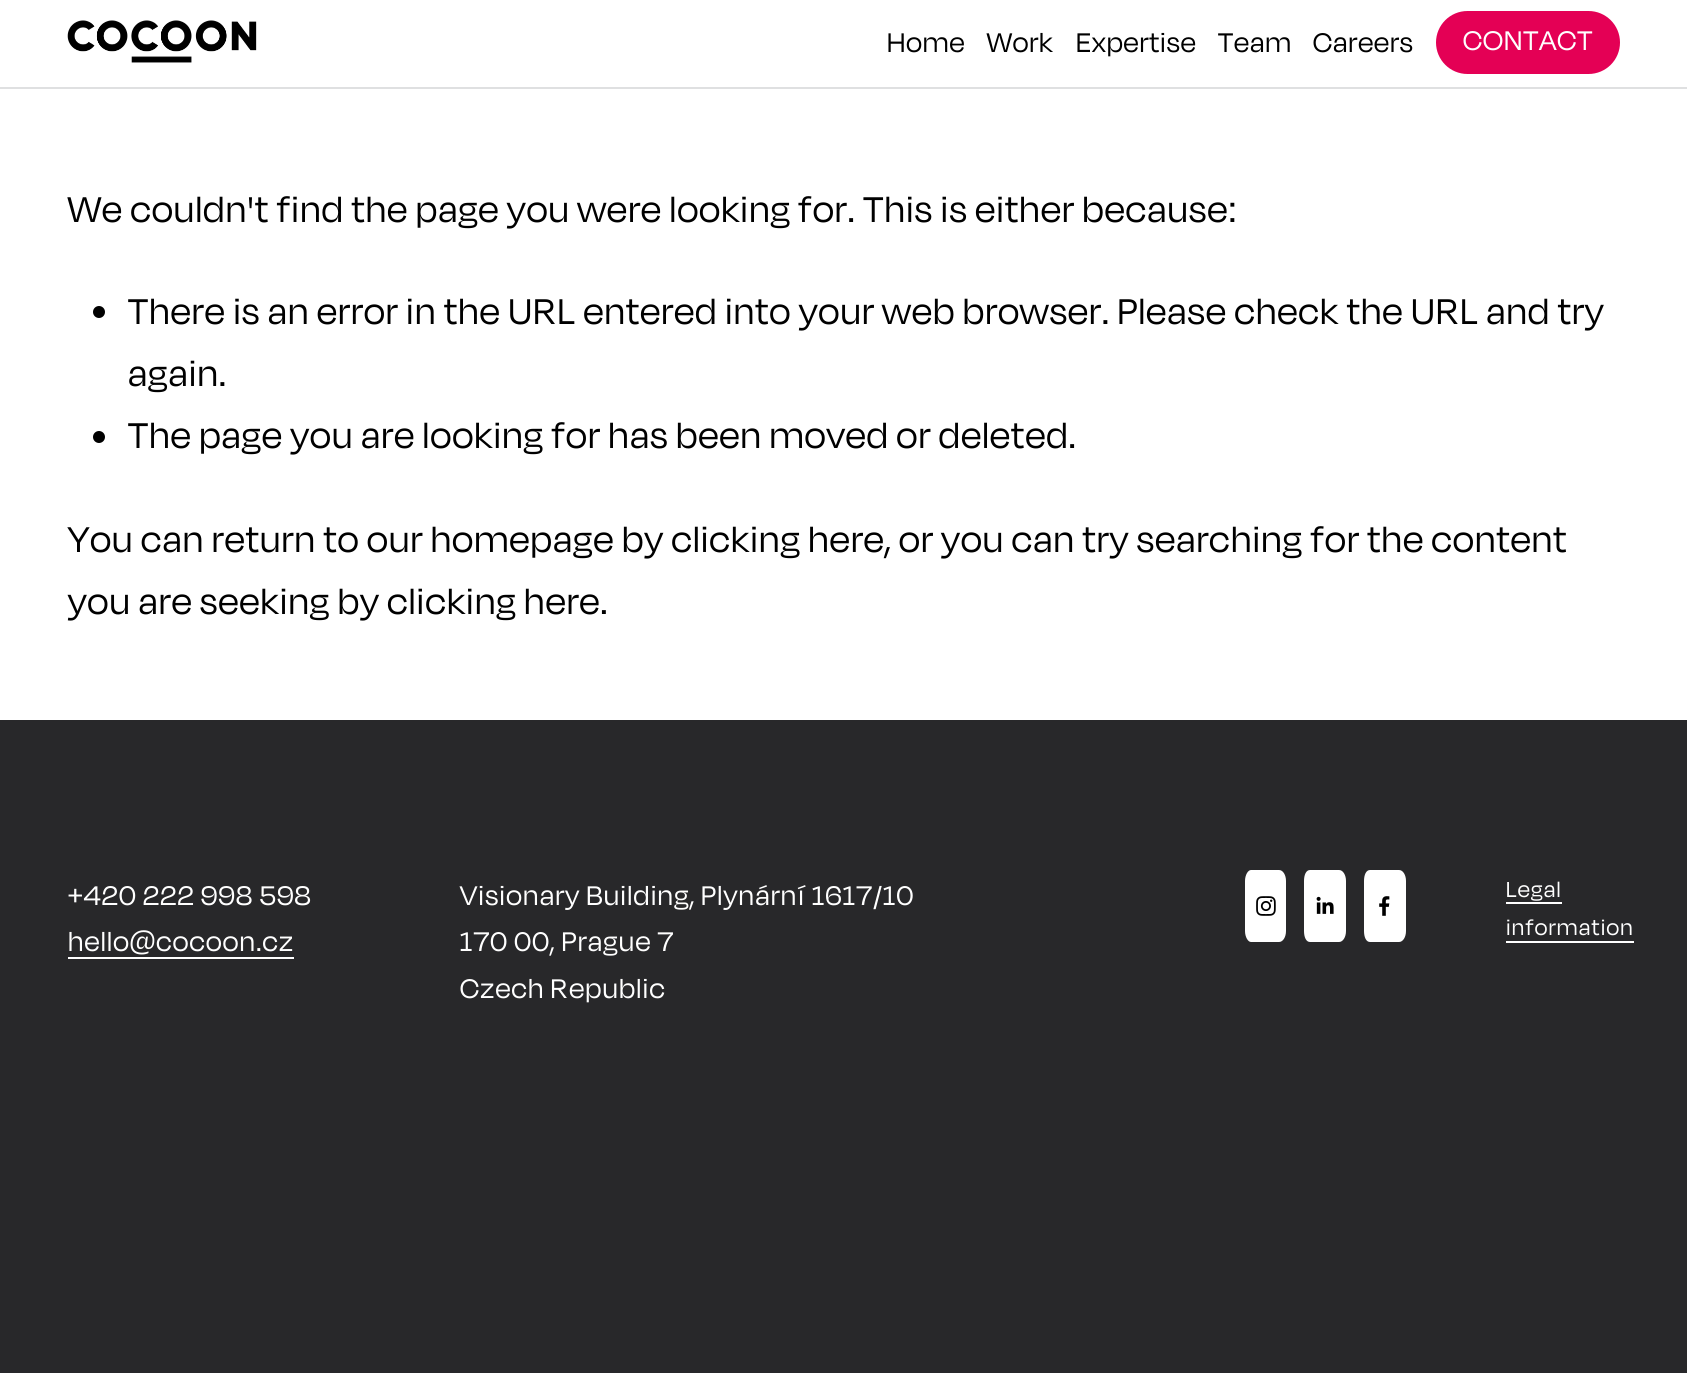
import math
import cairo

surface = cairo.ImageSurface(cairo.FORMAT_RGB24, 1687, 1373)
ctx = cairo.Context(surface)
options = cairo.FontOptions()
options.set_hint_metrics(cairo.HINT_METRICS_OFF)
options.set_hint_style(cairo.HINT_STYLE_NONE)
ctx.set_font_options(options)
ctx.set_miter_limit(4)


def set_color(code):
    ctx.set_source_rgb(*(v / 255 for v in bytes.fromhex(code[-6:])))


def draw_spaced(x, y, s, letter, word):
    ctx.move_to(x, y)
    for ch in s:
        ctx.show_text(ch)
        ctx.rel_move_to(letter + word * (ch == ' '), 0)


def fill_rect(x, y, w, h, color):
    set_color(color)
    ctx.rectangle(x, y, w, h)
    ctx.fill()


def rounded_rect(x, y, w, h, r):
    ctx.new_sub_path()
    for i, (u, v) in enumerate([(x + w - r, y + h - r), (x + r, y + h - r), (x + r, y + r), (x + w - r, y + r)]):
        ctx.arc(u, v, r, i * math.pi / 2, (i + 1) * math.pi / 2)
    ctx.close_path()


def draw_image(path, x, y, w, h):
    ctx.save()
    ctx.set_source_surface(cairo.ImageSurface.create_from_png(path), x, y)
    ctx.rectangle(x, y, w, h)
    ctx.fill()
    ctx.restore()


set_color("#ffffff")
ctx.paint()
draw_image("assets/img1.png", 67, 20, 190, 43)
ctx.select_font_face("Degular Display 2")
ctx.set_font_size(31.1)
set_color("#000000")
draw_spaced(887, 52, "Home", 1, 0)
draw_spaced(987, 52, "Work", 1, 0)
draw_spaced(1076, 52, "Expertise", 1, 0)
draw_spaced(1218, 52, "Team", 1, 0)
draw_spaced(1313, 52, "Careers", 1, 0)
set_color("#e40055")
rounded_rect(1436, 11, 184, 63, 31.5)
ctx.fill()
set_color("#ffffff")
draw_spaced(1463, 50, "CONTACT", 1, 0)
fill_rect(0, 87, 1687, 2, "#dfe0e1")
ctx.select_font_face("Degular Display")
ctx.set_font_size(41.25)
set_color("#000000")
draw_spaced(68, 222, "We couldn't find the page you were looking for. This is either because:", 1.25, 0)
ctx.new_path()
ctx.arc(99, 312, 6, 0, 2 * math.pi)
ctx.fill()
ctx.select_font_face("Degular Display 2")
draw_spaced(128, 324, "There is an error in the URL entered into your web browser. Please check the URL and try", 1.25, 0)
draw_spaced(128, 386, "again.", 1.25, 0)
ctx.new_path()
ctx.arc(99, 437, 6, 0, 2 * math.pi)
ctx.fill()
draw_spaced(128, 448, "The page you are looking for has been moved or deleted.", 1.25, 0)
ctx.select_font_face("Degular Display")
draw_spaced(68, 552, "You can return to our homepage by clicking here, or you can try searching for the content", 1.25, 0)
draw_spaced(68, 614, "you are seeking by clicking here.", 1.25, 0)
fill_rect(0, 720, 1687, 653, "#28282a")
ctx.set_font_size(31.1)
set_color("#ffffff")
draw_spaced(68, 905, "+420 222 998 598", 1.25, 0)
draw_spaced(68, 951, "hello@cocoon.cz", 1.25, 0)
fill_rect(68, 957, 226, 2, "#ffffff")
draw_spaced(460, 905, "Visionary Building, Plynární 1617/10", 1.25, 0)
draw_spaced(460, 951, "170 00, Prague 7", 1.25, 0)
draw_spaced(460, 998, "Czech Republic", 1.25, 0)
ctx.new_path()
ctx.move_to(1251, 870)
ctx.line_to(1279, 870)
ctx.curve_to(1283, 870, 1286, 875, 1286, 881)
ctx.line_to(1286, 931)
ctx.curve_to(1286, 937, 1283, 942, 1279, 942)
ctx.line_to(1251, 942)
ctx.curve_to(1248, 942, 1245, 937, 1245, 931)
ctx.line_to(1245, 881)
ctx.curve_to(1245, 875, 1248, 870, 1251, 870)
ctx.close_path()
ctx.fill()
draw_image("assets/img2.png", 1256, 896, 20, 20)
ctx.new_path()
ctx.move_to(1310, 870)
ctx.line_to(1339, 870)
ctx.curve_to(1343, 870, 1346, 875, 1346, 881)
ctx.line_to(1346, 931)
ctx.curve_to(1346, 937, 1343, 942, 1339, 942)
ctx.line_to(1310, 942)
ctx.curve_to(1306, 942, 1304, 937, 1304, 931)
ctx.line_to(1304, 881)
ctx.curve_to(1304, 875, 1306, 870, 1310, 870)
ctx.close_path()
ctx.fill()
draw_image("assets/img3.png", 1316, 896, 18, 18)
ctx.new_path()
ctx.move_to(1370, 870)
ctx.line_to(1399, 870)
ctx.curve_to(1403, 870, 1406, 875, 1406, 881)
ctx.line_to(1406, 931)
ctx.curve_to(1406, 937, 1403, 942, 1399, 942)
ctx.line_to(1370, 942)
ctx.curve_to(1366, 942, 1364, 937, 1364, 931)
ctx.line_to(1364, 881)
ctx.curve_to(1364, 875, 1366, 870, 1370, 870)
ctx.close_path()
ctx.fill()
draw_image("assets/img4.png", 1379, 896, 11, 20)
ctx.set_font_size(25)
draw_spaced(1506, 897, "Legal", 1.25, 0)
fill_rect(1506, 902, 56, 2, "#ffffff")
draw_spaced(1506, 935, "information", 1.25, 0)
fill_rect(1506, 941, 128, 2, "#ffffff")
surface.write_to_png("output.png")
